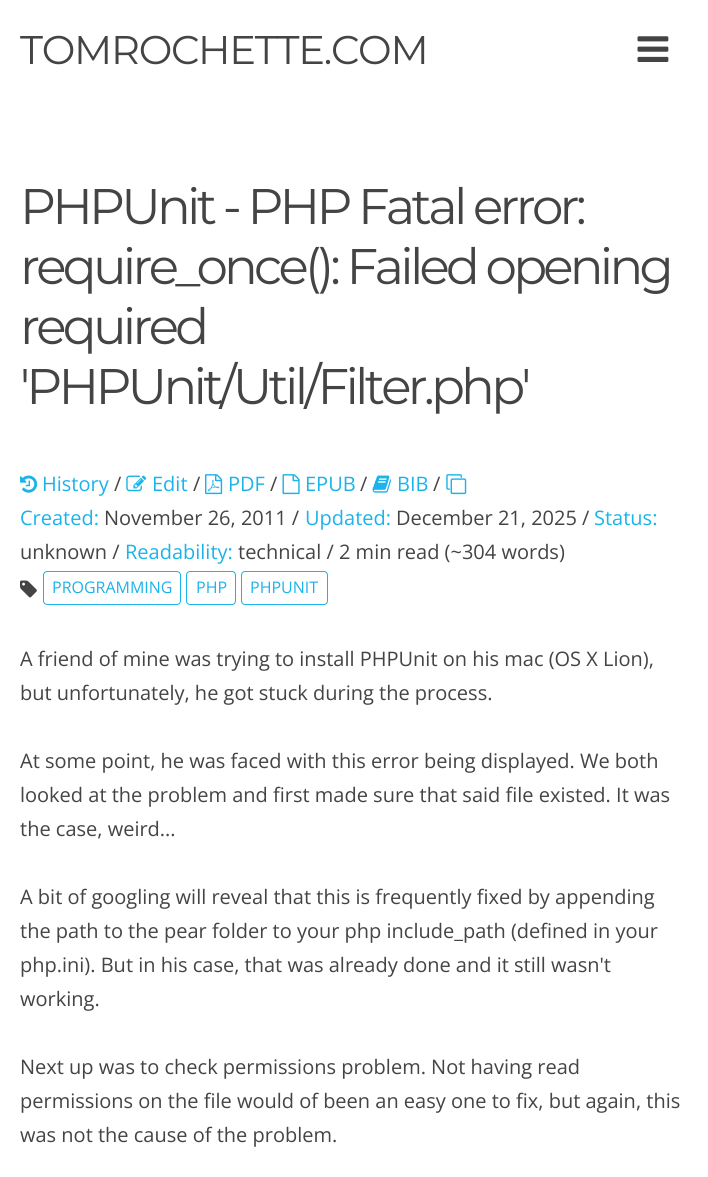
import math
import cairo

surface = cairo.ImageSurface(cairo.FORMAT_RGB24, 708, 1177)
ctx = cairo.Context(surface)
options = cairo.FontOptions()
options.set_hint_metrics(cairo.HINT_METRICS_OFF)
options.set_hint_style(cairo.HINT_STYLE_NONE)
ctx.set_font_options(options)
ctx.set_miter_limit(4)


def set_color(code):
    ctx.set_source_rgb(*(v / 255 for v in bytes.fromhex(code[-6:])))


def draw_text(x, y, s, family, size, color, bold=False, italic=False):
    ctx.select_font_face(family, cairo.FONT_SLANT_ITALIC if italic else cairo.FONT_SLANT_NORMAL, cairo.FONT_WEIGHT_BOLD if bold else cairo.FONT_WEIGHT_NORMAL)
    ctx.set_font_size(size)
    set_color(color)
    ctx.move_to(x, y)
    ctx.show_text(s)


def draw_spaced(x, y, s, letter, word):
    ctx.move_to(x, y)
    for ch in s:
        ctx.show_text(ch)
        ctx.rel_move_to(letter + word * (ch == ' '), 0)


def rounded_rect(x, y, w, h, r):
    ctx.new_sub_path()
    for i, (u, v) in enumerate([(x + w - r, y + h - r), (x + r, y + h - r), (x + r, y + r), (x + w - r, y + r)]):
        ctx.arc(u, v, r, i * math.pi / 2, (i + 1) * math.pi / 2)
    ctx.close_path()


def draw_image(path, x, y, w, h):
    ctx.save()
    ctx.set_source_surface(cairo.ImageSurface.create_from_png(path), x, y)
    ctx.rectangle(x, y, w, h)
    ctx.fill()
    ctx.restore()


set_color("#ffffff")
ctx.paint()
ctx.select_font_face("Montserrat Thin")
ctx.set_font_size(40)
set_color("#444444")
draw_spaced(20, 64, "TOMROCHETTE.COM", -1.25, 0)
draw_image("assets/img1.png", 637, 36, 32, 26)
ctx.set_font_size(50)
draw_spaced(20, 224, "PHPUnit - PHP Fatal error:", -3.75, 0)
draw_spaced(20, 284, "require_once(): Failed opening", -3.75, 0)
draw_spaced(20, 344, "required", -3.75, 0)
draw_spaced(20, 404, "'PHPUnit/Util/Filter.php'", -3.75, 0)
draw_image("assets/img2.png", 20, 475, 18, 18)
draw_text(42, 491, "History", "Open Sans", 20, "#1bb3e9")
draw_text(114, 491, "/", "Open Sans", 20, "#444444")
draw_image("assets/img3.png", 126, 475, 21, 17)
draw_text(152, 491, "Edit", "Open Sans", 20, "#1bb3e9")
draw_text(193, 491, "/", "Open Sans", 20, "#444444")
draw_image("assets/img4.png", 205, 474, 18, 21)
draw_text(228, 491, "PDF", "Open Sans", 20, "#1bb3e9")
draw_text(270, 491, "/", "Open Sans", 20, "#444444")
draw_image("assets/img5.png", 282, 474, 18, 21)
draw_text(305, 491, "EPUB", "Open Sans", 20, "#1bb3e9")
draw_text(360, 491, "/", "Open Sans", 20, "#444444")
draw_image("assets/img6.png", 372, 475, 20, 18)
draw_text(397, 491, "BIB", "Open Sans", 20, "#1bb3e9")
draw_text(433, 491, "/", "Open Sans", 20, "#444444")
draw_image("assets/img7.png", 446, 474, 21, 21)
draw_text(20, 525, "Created:", "Open Sans", 20, "#1bb3e9")
draw_text(104, 525, "November 26, 2011 /", "Open Sans", 20, "#444444")
draw_text(305, 525, "Updated:", "Open Sans", 20, "#1bb3e9")
draw_text(396, 525, "December 21, 2025 /", "Open Sans", 20, "#444444")
draw_text(594, 525, "Status:", "Open Sans", 20, "#1bb3e9")
draw_text(20, 559, "unknown /", "Open Sans", 20, "#444444")
draw_text(125, 559, "Readability:", "Open Sans", 20, "#1bb3e9")
draw_text(238, 559, "technical / 2 min read (~304 words)", "Open Sans", 20, "#444444")
draw_image("assets/img8.png", 20, 580, 17, 18)
rounded_rect(43.5, 571.5, 137, 33, 3.5)
set_color("#1bb3e9")
ctx.set_line_width(1)
ctx.stroke()
draw_text(52, 593, "PROGRAMMING", "Open Sans", 16, "#1bb3e9")
rounded_rect(186.5, 571.5, 49, 33, 3.5)
ctx.stroke()
draw_text(196, 593, "PHP", "Open Sans", 16, "#1bb3e9")
rounded_rect(241.5, 571.5, 86, 33, 3.5)
ctx.stroke()
draw_text(250, 593, "PHPUNIT", "Open Sans", 16, "#1bb3e9")
draw_text(20, 666, "A friend of mine was trying to install PHPUnit on his mac (OS X Lion),", "Open Sans", 20, "#444444")
draw_text(20, 700, "but unfortunately, he got stuck during the process.", "Open Sans", 20, "#444444")
draw_text(20, 768, "At some point, he was faced with this error being displayed. We both", "Open Sans", 20, "#444444")
draw_text(20, 802, "looked at the problem and first made sure that said file existed. It was", "Open Sans", 20, "#444444")
draw_text(20, 836, "the case, weird...", "Open Sans", 20, "#444444")
draw_text(20, 904, "A bit of googling will reveal that this is frequently fixed by appending", "Open Sans", 20, "#444444")
draw_text(20, 938, "the path to the pear folder to your php include_path (defined in your", "Open Sans", 20, "#444444")
draw_text(20, 972, "php.ini). But in his case, that was already done and it still wasn't", "Open Sans", 20, "#444444")
draw_text(20, 1006, "working.", "Open Sans", 20, "#444444")
draw_text(20, 1074, "Next up was to check permissions problem. Not having read", "Open Sans", 20, "#444444")
draw_text(20, 1108, "permissions on the file would of been an easy one to fix, but again, this", "Open Sans", 20, "#444444")
draw_text(20, 1142, "was not the cause of the problem.", "Open Sans", 20, "#444444")
surface.write_to_png("output.png")
